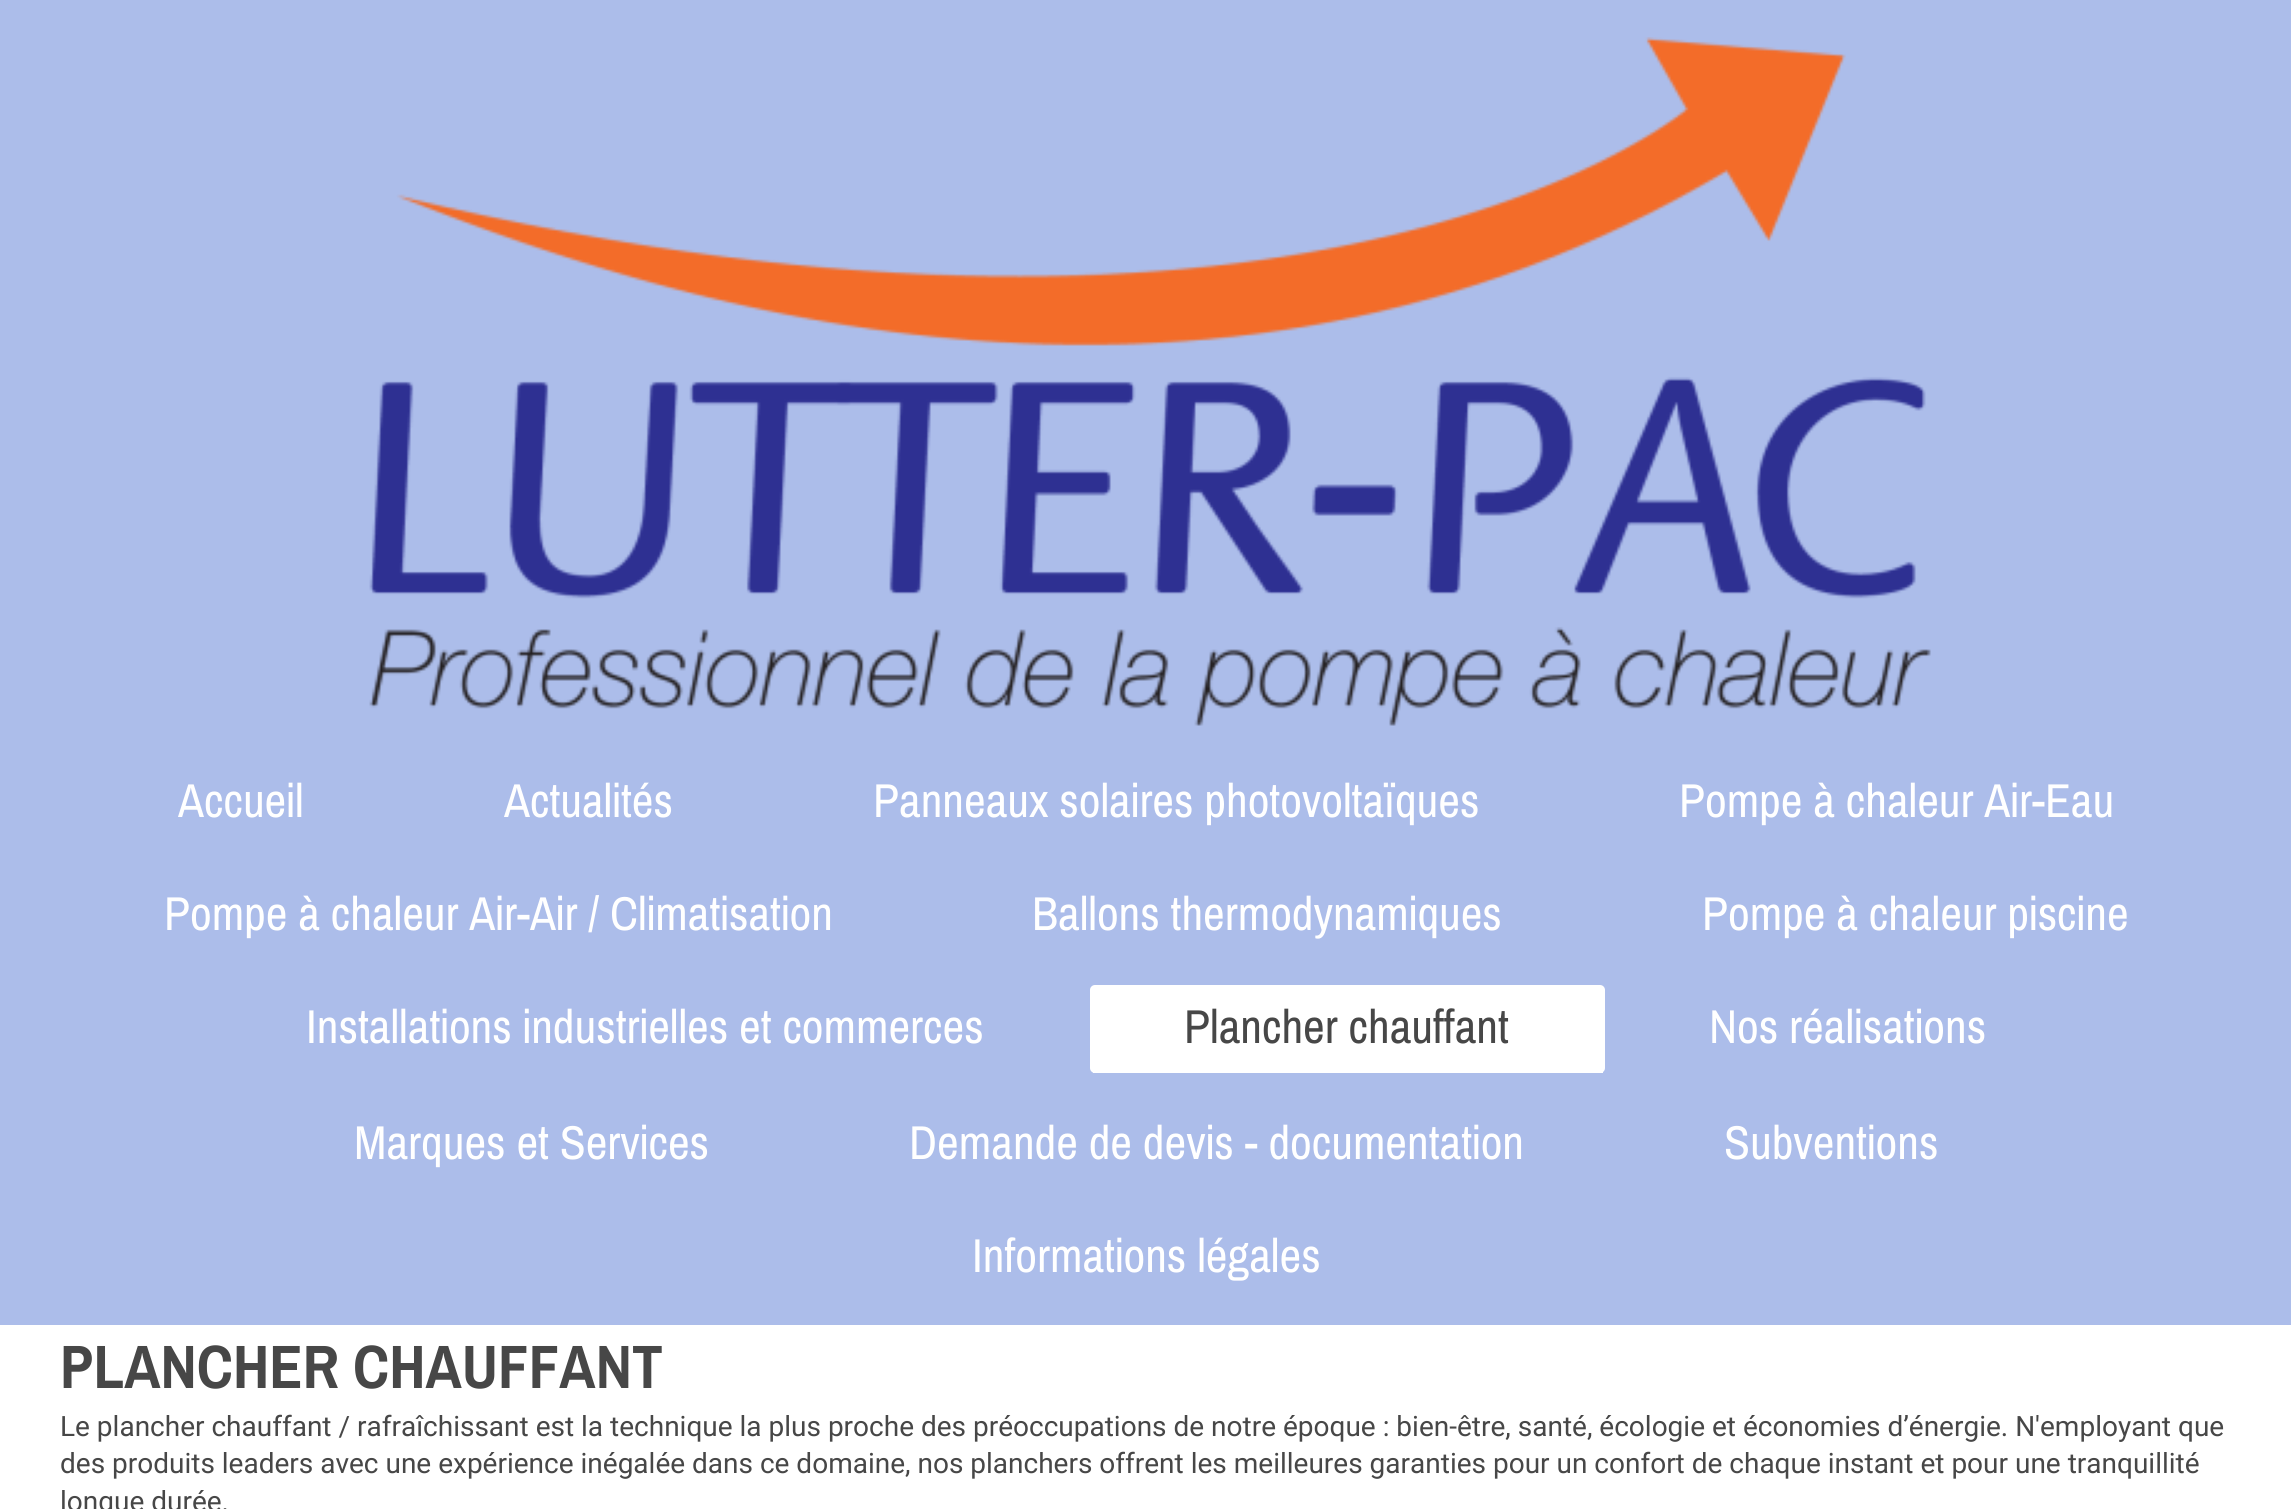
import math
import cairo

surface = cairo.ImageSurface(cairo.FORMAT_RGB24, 2291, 1509)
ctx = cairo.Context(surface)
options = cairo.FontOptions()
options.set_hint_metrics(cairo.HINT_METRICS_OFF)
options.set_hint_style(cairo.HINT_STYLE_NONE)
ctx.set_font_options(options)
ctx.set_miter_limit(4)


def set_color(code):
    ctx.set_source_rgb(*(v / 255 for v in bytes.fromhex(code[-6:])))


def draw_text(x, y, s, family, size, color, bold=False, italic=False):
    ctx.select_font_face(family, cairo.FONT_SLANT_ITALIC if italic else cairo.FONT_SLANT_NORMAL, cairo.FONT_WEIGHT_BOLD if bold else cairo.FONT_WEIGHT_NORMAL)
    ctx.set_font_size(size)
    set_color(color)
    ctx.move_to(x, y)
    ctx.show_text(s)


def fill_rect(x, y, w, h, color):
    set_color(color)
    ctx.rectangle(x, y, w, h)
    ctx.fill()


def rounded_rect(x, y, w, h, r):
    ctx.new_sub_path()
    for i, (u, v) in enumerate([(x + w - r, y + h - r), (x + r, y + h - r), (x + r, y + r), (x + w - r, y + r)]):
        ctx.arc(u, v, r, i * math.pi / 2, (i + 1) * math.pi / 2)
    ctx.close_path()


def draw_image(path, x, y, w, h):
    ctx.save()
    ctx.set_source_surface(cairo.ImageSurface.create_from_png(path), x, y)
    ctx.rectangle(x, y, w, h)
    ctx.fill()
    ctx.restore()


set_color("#ffffff")
ctx.paint()
fill_rect(0, 0, 2291, 1325, "#acbdea")
draw_image("assets/img1.png", 369, 37, 1562, 689)
draw_text(178, 817, "Accueil", "Archivo Narrow", 47.5, "#ffffff")
draw_text(504, 817, "Actualités", "Archivo Narrow", 47.5, "#ffffff")
draw_text(873, 817, "Panneaux solaires photovoltaïques", "Archivo Narrow", 47.5, "#ffffff")
draw_text(1679, 817, "Pompe à chaleur Air-Eau", "Archivo Narrow", 47.5, "#ffffff")
draw_text(164, 930, "Pompe à chaleur Air-Air / Climatisation", "Archivo Narrow", 47.5, "#ffffff")
draw_text(1032, 930, "Ballons thermodynamiques", "Archivo Narrow", 47.5, "#ffffff")
draw_text(1702, 930, "Pompe à chaleur piscine", "Archivo Narrow", 47.5, "#ffffff")
draw_text(306, 1043, "Installations industrielles et commerces", "Archivo Narrow", 47.5, "#ffffff")
rounded_rect(1090, 985, 515, 88, 5)
ctx.fill()
fill_rect(1093, 1072, 510, 1, "#ffffff")
draw_text(1184, 1043, "Plancher chauffant", "Archivo Narrow", 47.5, "#474747")
draw_text(1709, 1043, "Nos réalisations", "Archivo Narrow", 47.5, "#ffffff")
draw_text(354, 1159, "Marques et Services", "Archivo Narrow", 47.5, "#ffffff")
draw_text(909, 1159, "Demande de devis - documentation", "Archivo Narrow", 47.5, "#ffffff")
draw_text(1724, 1159, "Subventions", "Archivo Narrow", 47.5, "#ffffff")
draw_text(972, 1272, "Informations légales", "Archivo Narrow", 47.5, "#ffffff")
draw_text(60, 1388, "PLANCHER CHAUFFANT", "Archivo Narrow", 61.25, "#474747", bold=True)
draw_text(60, 1436, "Le plancher chauffant / rafraîchissant est la technique la plus proche des préoccupations de notre époque : bien-être, santé, écologie et économies d’énergie. N'employant que", "Roboto", 28, "#474747")
draw_text(60, 1473, "des produits leaders avec une expérience inégalée dans ce domaine, nos planchers offrent les meilleures garanties pour un confort de chaque instant et pour une tranquillité", "Roboto", 28, "#474747")
draw_text(60, 1511, "longue durée.", "Roboto", 28, "#474747")
surface.write_to_png("output.png")
